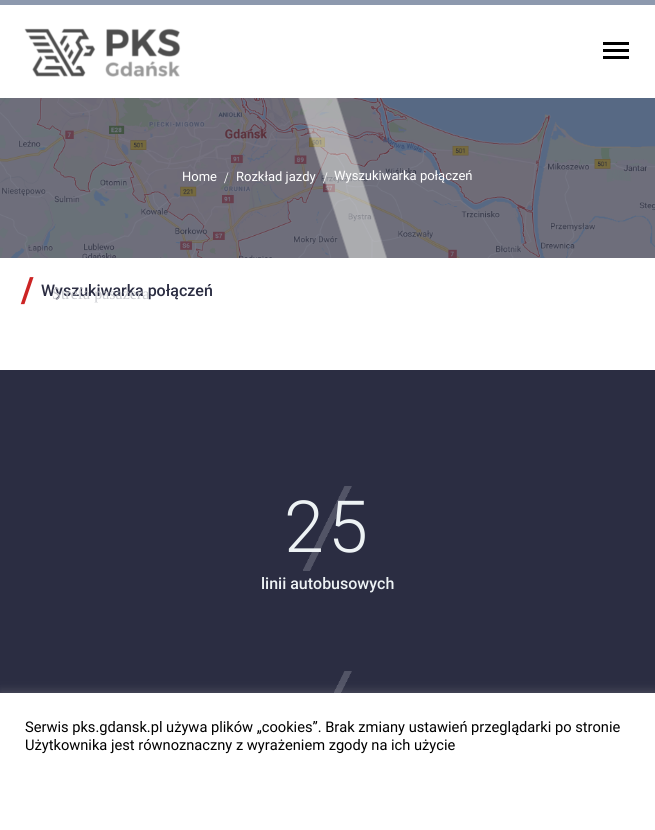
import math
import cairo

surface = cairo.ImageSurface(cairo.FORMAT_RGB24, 655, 830)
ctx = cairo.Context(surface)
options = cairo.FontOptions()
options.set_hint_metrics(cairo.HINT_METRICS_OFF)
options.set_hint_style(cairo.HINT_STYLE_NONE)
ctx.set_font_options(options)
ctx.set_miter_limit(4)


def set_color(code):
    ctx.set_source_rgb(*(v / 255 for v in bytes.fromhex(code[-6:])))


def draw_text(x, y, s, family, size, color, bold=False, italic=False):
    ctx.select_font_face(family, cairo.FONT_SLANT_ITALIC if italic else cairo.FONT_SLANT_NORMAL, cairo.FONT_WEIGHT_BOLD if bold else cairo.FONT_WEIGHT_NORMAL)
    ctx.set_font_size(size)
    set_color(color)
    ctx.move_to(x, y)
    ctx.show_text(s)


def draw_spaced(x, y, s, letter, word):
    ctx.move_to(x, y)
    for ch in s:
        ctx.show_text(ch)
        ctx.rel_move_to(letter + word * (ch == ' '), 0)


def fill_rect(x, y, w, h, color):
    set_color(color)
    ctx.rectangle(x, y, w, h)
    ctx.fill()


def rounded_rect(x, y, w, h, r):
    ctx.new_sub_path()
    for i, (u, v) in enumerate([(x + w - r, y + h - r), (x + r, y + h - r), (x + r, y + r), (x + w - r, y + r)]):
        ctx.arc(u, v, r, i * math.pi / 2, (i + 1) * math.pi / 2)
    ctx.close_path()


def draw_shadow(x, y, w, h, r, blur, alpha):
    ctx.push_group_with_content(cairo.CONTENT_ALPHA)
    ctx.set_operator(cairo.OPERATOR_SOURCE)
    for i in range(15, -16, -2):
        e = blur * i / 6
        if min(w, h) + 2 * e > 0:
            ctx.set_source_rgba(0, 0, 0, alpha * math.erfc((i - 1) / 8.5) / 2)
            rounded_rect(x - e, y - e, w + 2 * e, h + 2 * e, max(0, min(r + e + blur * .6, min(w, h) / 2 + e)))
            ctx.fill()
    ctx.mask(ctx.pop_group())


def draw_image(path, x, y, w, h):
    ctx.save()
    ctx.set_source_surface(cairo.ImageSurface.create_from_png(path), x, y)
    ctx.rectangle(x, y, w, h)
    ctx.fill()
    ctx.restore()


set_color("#ffffff")
ctx.paint()
draw_image("assets/img1.png", 0, 98, 655, 160)
draw_image("assets/img2.png", 0, 98, 655, 160)
draw_text(182, 181, "Home", "Roboto", 13, "#ffffff")
draw_text(224, 183, "/", "Liberation Serif", 16, "#ffffff")
draw_text(236, 181, "Rozkład jazdy", "Roboto", 13, "#ffffff")
draw_text(323, 183, "/", "Liberation Serif", 16, "#ffffff")
draw_text(334, 180, "Wyszukiwarka połączeń", "Roboto", 13, "#ffffff")
draw_text(21, 302, "/", "Roboto", 35, "#cc2424", bold=True)
draw_text(41, 296, "Wyszukiwarka połączeń", "Roboto Medium", 16, "#2b2d42")
fill_rect(0, 0, 655, 5, "#8d99ae")
draw_image("assets/img3.png", 24, 28, 157, 49)
fill_rect(603, 42, 26, 3, "#000000")
fill_rect(603, 49, 26, 3, "#000000")
fill_rect(603, 56, 26, 3, "#000000")
draw_text(52, 299, "Strefa pasażera", "Liberation Serif", 16, "#cacbd0")
fill_rect(0, 370, 655, 323, "#2b2d42")
draw_image("assets/img4.png", 303, 486, 49, 85)
ctx.select_font_face("Roboto Light")
ctx.set_font_size(72)
set_color("#edf2f4")
draw_spaced(284, 552, "25", 4, 0)
draw_text(261, 589, "linii autobusowych", "Roboto Medium", 16, "#edf2f4")
draw_image("assets/img5.png", 334, 671, 18, 22)
set_color("#acabab")
draw_shadow(0, 692, 655, 137, 0, 5, 0.3)
fill_rect(0, 693, 655, 137, "#ffffff")
draw_text(25, 732, "Serwis pks.gdansk.pl używa plików „cookies”. Brak zmiany ustawień przeglądarki po stronie", "Roboto", 14.65, "#000000")
draw_text(25, 750, "Użytkownika jest równoznaczny z wyrażeniem zgody na ich użycie", "Roboto", 14.65, "#000000")
surface.write_to_png("output.png")
